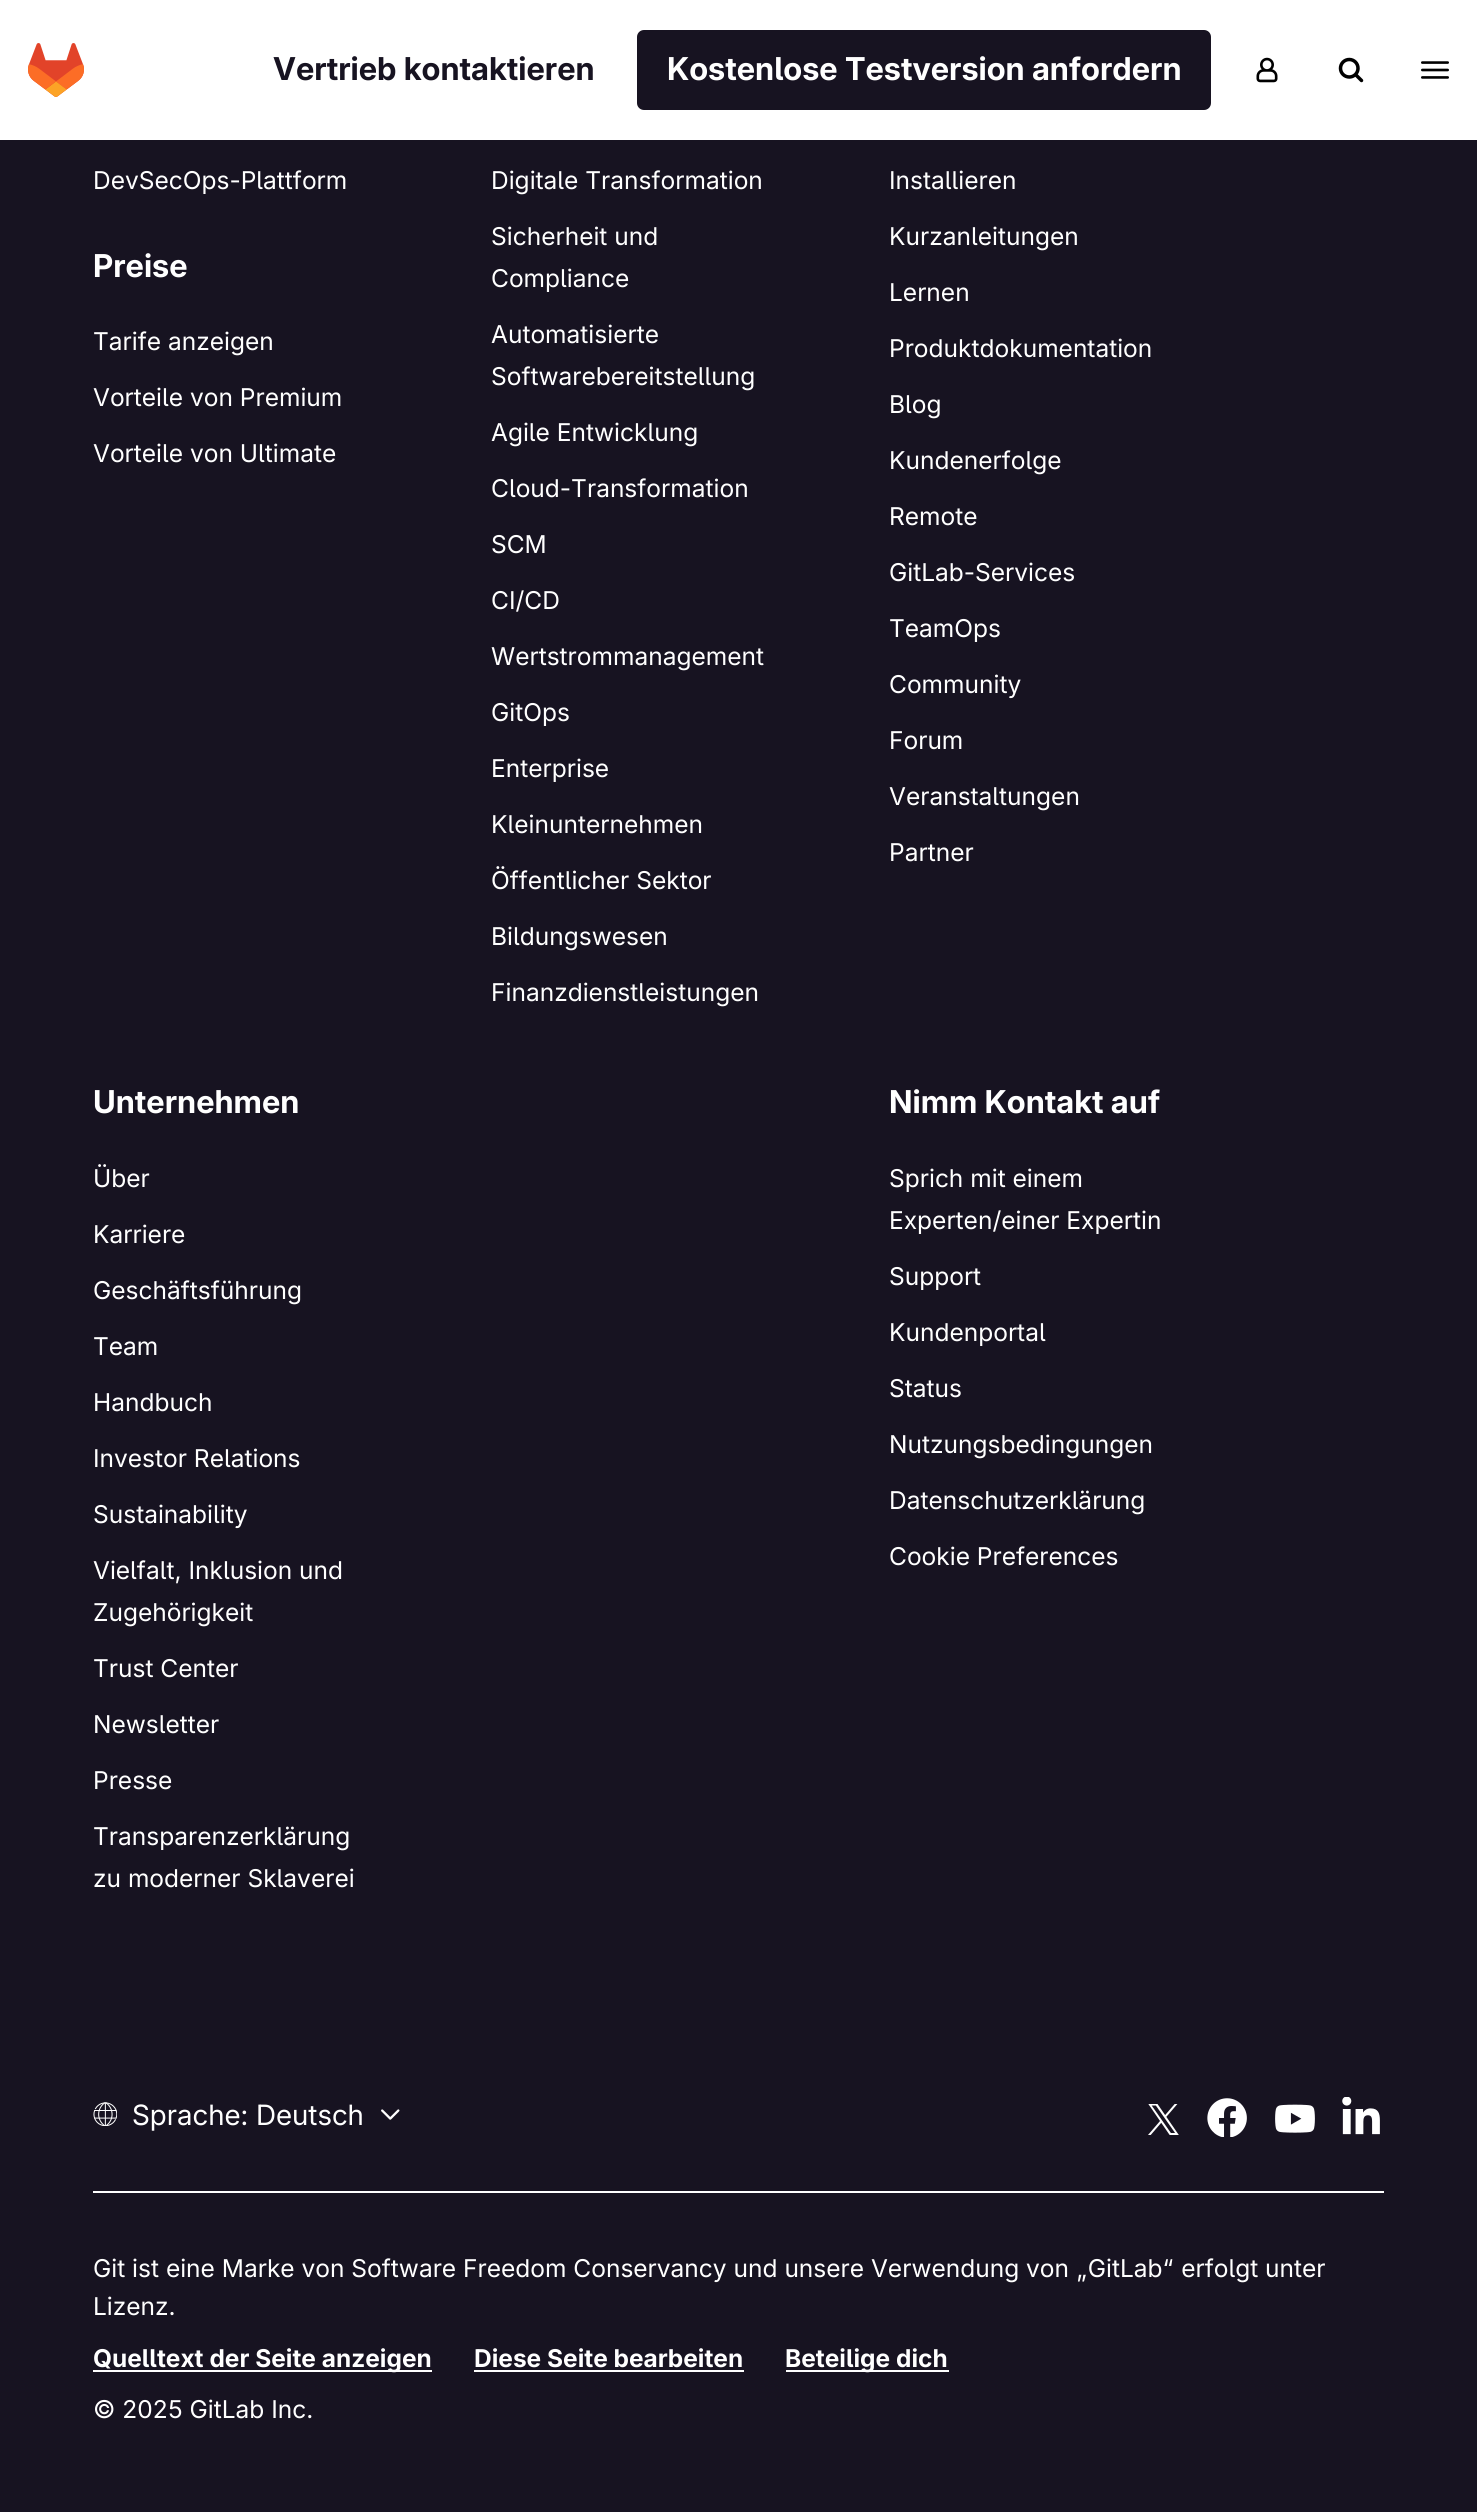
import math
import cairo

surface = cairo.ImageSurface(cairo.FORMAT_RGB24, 1477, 2512)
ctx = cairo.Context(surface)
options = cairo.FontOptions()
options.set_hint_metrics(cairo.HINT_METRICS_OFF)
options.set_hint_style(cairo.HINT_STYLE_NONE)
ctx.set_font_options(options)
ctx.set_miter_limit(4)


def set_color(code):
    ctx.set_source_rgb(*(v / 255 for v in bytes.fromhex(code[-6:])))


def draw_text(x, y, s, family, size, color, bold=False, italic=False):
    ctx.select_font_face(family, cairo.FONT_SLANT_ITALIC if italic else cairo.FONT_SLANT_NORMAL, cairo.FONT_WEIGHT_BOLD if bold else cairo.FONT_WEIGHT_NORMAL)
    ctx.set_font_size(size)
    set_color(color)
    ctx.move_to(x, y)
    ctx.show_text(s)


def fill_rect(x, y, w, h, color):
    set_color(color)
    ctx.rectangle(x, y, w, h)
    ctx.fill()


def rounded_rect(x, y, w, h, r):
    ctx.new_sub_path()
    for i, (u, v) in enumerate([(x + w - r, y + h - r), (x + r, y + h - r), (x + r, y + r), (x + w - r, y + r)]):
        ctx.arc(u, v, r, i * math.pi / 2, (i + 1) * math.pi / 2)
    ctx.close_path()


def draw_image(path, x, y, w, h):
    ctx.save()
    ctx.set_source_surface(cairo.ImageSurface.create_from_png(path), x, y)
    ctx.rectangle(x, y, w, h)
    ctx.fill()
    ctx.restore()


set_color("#171321")
ctx.paint()
fill_rect(0, 0, 1477, 140, "#ffffff")
draw_image("assets/img1.png", 28, 43, 56, 54)
draw_text(273, 80, "Vertrieb kontaktieren", "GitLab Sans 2", 31.5, "#171321", bold=True)
rounded_rect(638, 31, 572, 78, 6)
ctx.fill_preserve()
ctx.stroke()
draw_text(667, 80, "Kostenlose Testversion anfordern", "GitLab Sans 2", 31.5, "#ffffff", bold=True)
draw_image("assets/img2.png", 1256, 57, 22, 26)
draw_image("assets/img3.png", 1338, 57, 26, 26)
draw_image("assets/img4.png", 1421, 61, 28, 18)
draw_text(93, 189, "DevSecOps-Plattform", "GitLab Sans", 24.5, "#ffffff")
draw_text(93, 277, "Preise", "GitLab Sans 2", 31.5, "#ffffff", bold=True)
draw_text(93, 350, "Tarife anzeigen", "GitLab Sans", 24.5, "#ffffff")
draw_text(93, 406, "Vorteile von Premium", "GitLab Sans", 24.5, "#ffffff")
draw_text(93, 462, "Vorteile von Ultimate", "GitLab Sans", 24.5, "#ffffff")
draw_text(491, 189, "Digitale Transformation", "GitLab Sans", 24.5, "#ffffff")
draw_text(491, 245, "Sicherheit und", "GitLab Sans", 24.5, "#ffffff")
draw_text(491, 287, "Compliance", "GitLab Sans", 24.5, "#ffffff")
draw_text(491, 343, "Automatisierte", "GitLab Sans", 24.5, "#ffffff")
draw_text(491, 385, "Softwarebereitstellung", "GitLab Sans", 24.5, "#ffffff")
draw_text(491, 441, "Agile Entwicklung", "GitLab Sans", 24.5, "#ffffff")
draw_text(491, 497, "Cloud-Transformation", "GitLab Sans", 24.5, "#ffffff")
draw_text(491, 553, "SCM", "GitLab Sans", 24.5, "#ffffff")
draw_text(491, 609, "CI/CD", "GitLab Sans", 24.5, "#ffffff")
draw_text(491, 665, "Wertstrommanagement", "GitLab Sans", 24.5, "#ffffff")
draw_text(491, 721, "GitOps", "GitLab Sans", 24.5, "#ffffff")
draw_text(491, 777, "Enterprise", "GitLab Sans", 24.5, "#ffffff")
draw_text(491, 833, "Kleinunternehmen", "GitLab Sans", 24.5, "#ffffff")
draw_text(491, 889, "Öffentlicher Sektor", "GitLab Sans", 24.5, "#ffffff")
draw_text(491, 945, "Bildungswesen", "GitLab Sans", 24.5, "#ffffff")
draw_text(491, 1001, "Finanzdienstleistungen", "GitLab Sans", 24.5, "#ffffff")
draw_text(889, 189, "Installieren", "GitLab Sans", 24.5, "#ffffff")
draw_text(889, 245, "Kurzanleitungen", "GitLab Sans", 24.5, "#ffffff")
draw_text(889, 301, "Lernen", "GitLab Sans", 24.5, "#ffffff")
draw_text(889, 357, "Produktdokumentation", "GitLab Sans", 24.5, "#ffffff")
draw_text(889, 413, "Blog", "GitLab Sans", 24.5, "#ffffff")
draw_text(889, 469, "Kundenerfolge", "GitLab Sans", 24.5, "#ffffff")
draw_text(889, 525, "Remote", "GitLab Sans", 24.5, "#ffffff")
draw_text(889, 581, "GitLab-Services", "GitLab Sans", 24.5, "#ffffff")
draw_text(889, 637, "TeamOps", "GitLab Sans", 24.5, "#ffffff")
draw_text(889, 693, "Community", "GitLab Sans", 24.5, "#ffffff")
draw_text(889, 749, "Forum", "GitLab Sans", 24.5, "#ffffff")
draw_text(889, 805, "Veranstaltungen", "GitLab Sans", 24.5, "#ffffff")
draw_text(889, 861, "Partner", "GitLab Sans", 24.5, "#ffffff")
draw_text(93, 1113, "Unternehmen", "GitLab Sans 2", 31.5, "#ffffff", bold=True)
draw_text(93, 1187, "Über", "GitLab Sans", 24.5, "#ffffff")
draw_text(93, 1243, "Karriere", "GitLab Sans", 24.5, "#ffffff")
draw_text(93, 1299, "Geschäftsführung", "GitLab Sans", 24.5, "#ffffff")
draw_text(93, 1355, "Team", "GitLab Sans", 24.5, "#ffffff")
draw_text(93, 1411, "Handbuch", "GitLab Sans", 24.5, "#ffffff")
draw_text(93, 1467, "Investor Relations", "GitLab Sans", 24.5, "#ffffff")
draw_text(93, 1523, "Sustainability", "GitLab Sans", 24.5, "#ffffff")
draw_text(93, 1579, "Vielfalt, Inklusion und", "GitLab Sans", 24.5, "#ffffff")
draw_text(93, 1621, "Zugehörigkeit", "GitLab Sans", 24.5, "#ffffff")
draw_text(93, 1677, "Trust Center", "GitLab Sans", 24.5, "#ffffff")
draw_text(93, 1733, "Newsletter", "GitLab Sans", 24.5, "#ffffff")
draw_text(93, 1789, "Presse", "GitLab Sans", 24.5, "#ffffff")
draw_text(93, 1845, "Transparenzerklärung", "GitLab Sans", 24.5, "#ffffff")
draw_text(93, 1887, "zu moderner Sklaverei", "GitLab Sans", 24.5, "#ffffff")
draw_text(889, 1113, "Nimm Kontakt auf", "GitLab Sans 2", 31.5, "#ffffff", bold=True)
draw_text(889, 1187, "Sprich mit einem", "GitLab Sans", 24.5, "#ffffff")
draw_text(889, 1229, "Experten/einer Expertin", "GitLab Sans", 24.5, "#ffffff")
draw_text(889, 1285, "Support", "GitLab Sans", 24.5, "#ffffff")
draw_text(889, 1341, "Kundenportal", "GitLab Sans", 24.5, "#ffffff")
draw_text(889, 1397, "Status", "GitLab Sans", 24.5, "#ffffff")
draw_text(889, 1453, "Nutzungsbedingungen", "GitLab Sans", 24.5, "#ffffff")
draw_text(889, 1509, "Datenschutzerklärung", "GitLab Sans", 24.5, "#ffffff")
draw_text(889, 1565, "Cookie Preferences", "GitLab Sans", 24.5, "#ffffff")
fill_rect(93, 2191, 1291, 2, "#ffffff")
draw_image("assets/img5.png", 93, 2102, 24, 24)
draw_text(132, 2125, "Sprache: Deutsch", "GitLab Sans 2", 28, "#ffffff")
draw_image("assets/img6.png", 381, 2109, 19, 11)
draw_image("assets/img7.png", 1148, 2104, 31, 31)
draw_image("assets/img8.png", 1207, 2098, 40, 39)
draw_image("assets/img9.png", 1275, 2104, 40, 29)
draw_image("assets/img10.png", 1342, 2097, 38, 38)
draw_text(93, 2277, "Git ist eine Marke von Software Freedom Conservancy und unsere Verwendung von „GitLab“ erfolgt unter", "GitLab Sans", 24.5, "#ffffff")
draw_text(93, 2315, "Lizenz.", "GitLab Sans", 24.5, "#ffffff")
fill_rect(93, 2370, 339, 2, "#ffffff")
draw_text(93, 2367, "Quelltext der Seite anzeigen", "GitLab Sans", 24.5, "#ffffff", bold=True)
draw_text(474, 2367, "Diese Seite bearbeiten", "GitLab Sans", 24.5, "#ffffff", bold=True)
fill_rect(474, 2370, 270, 2, "#ffffff")
fill_rect(786, 2370, 163, 2, "#ffffff")
draw_text(785, 2367, "Beteilige dich", "GitLab Sans", 24.5, "#ffffff", bold=True)
draw_text(93, 2418, "© 2025 GitLab Inc.", "GitLab Sans", 24.5, "#ffffff")
surface.write_to_png("output.png")
